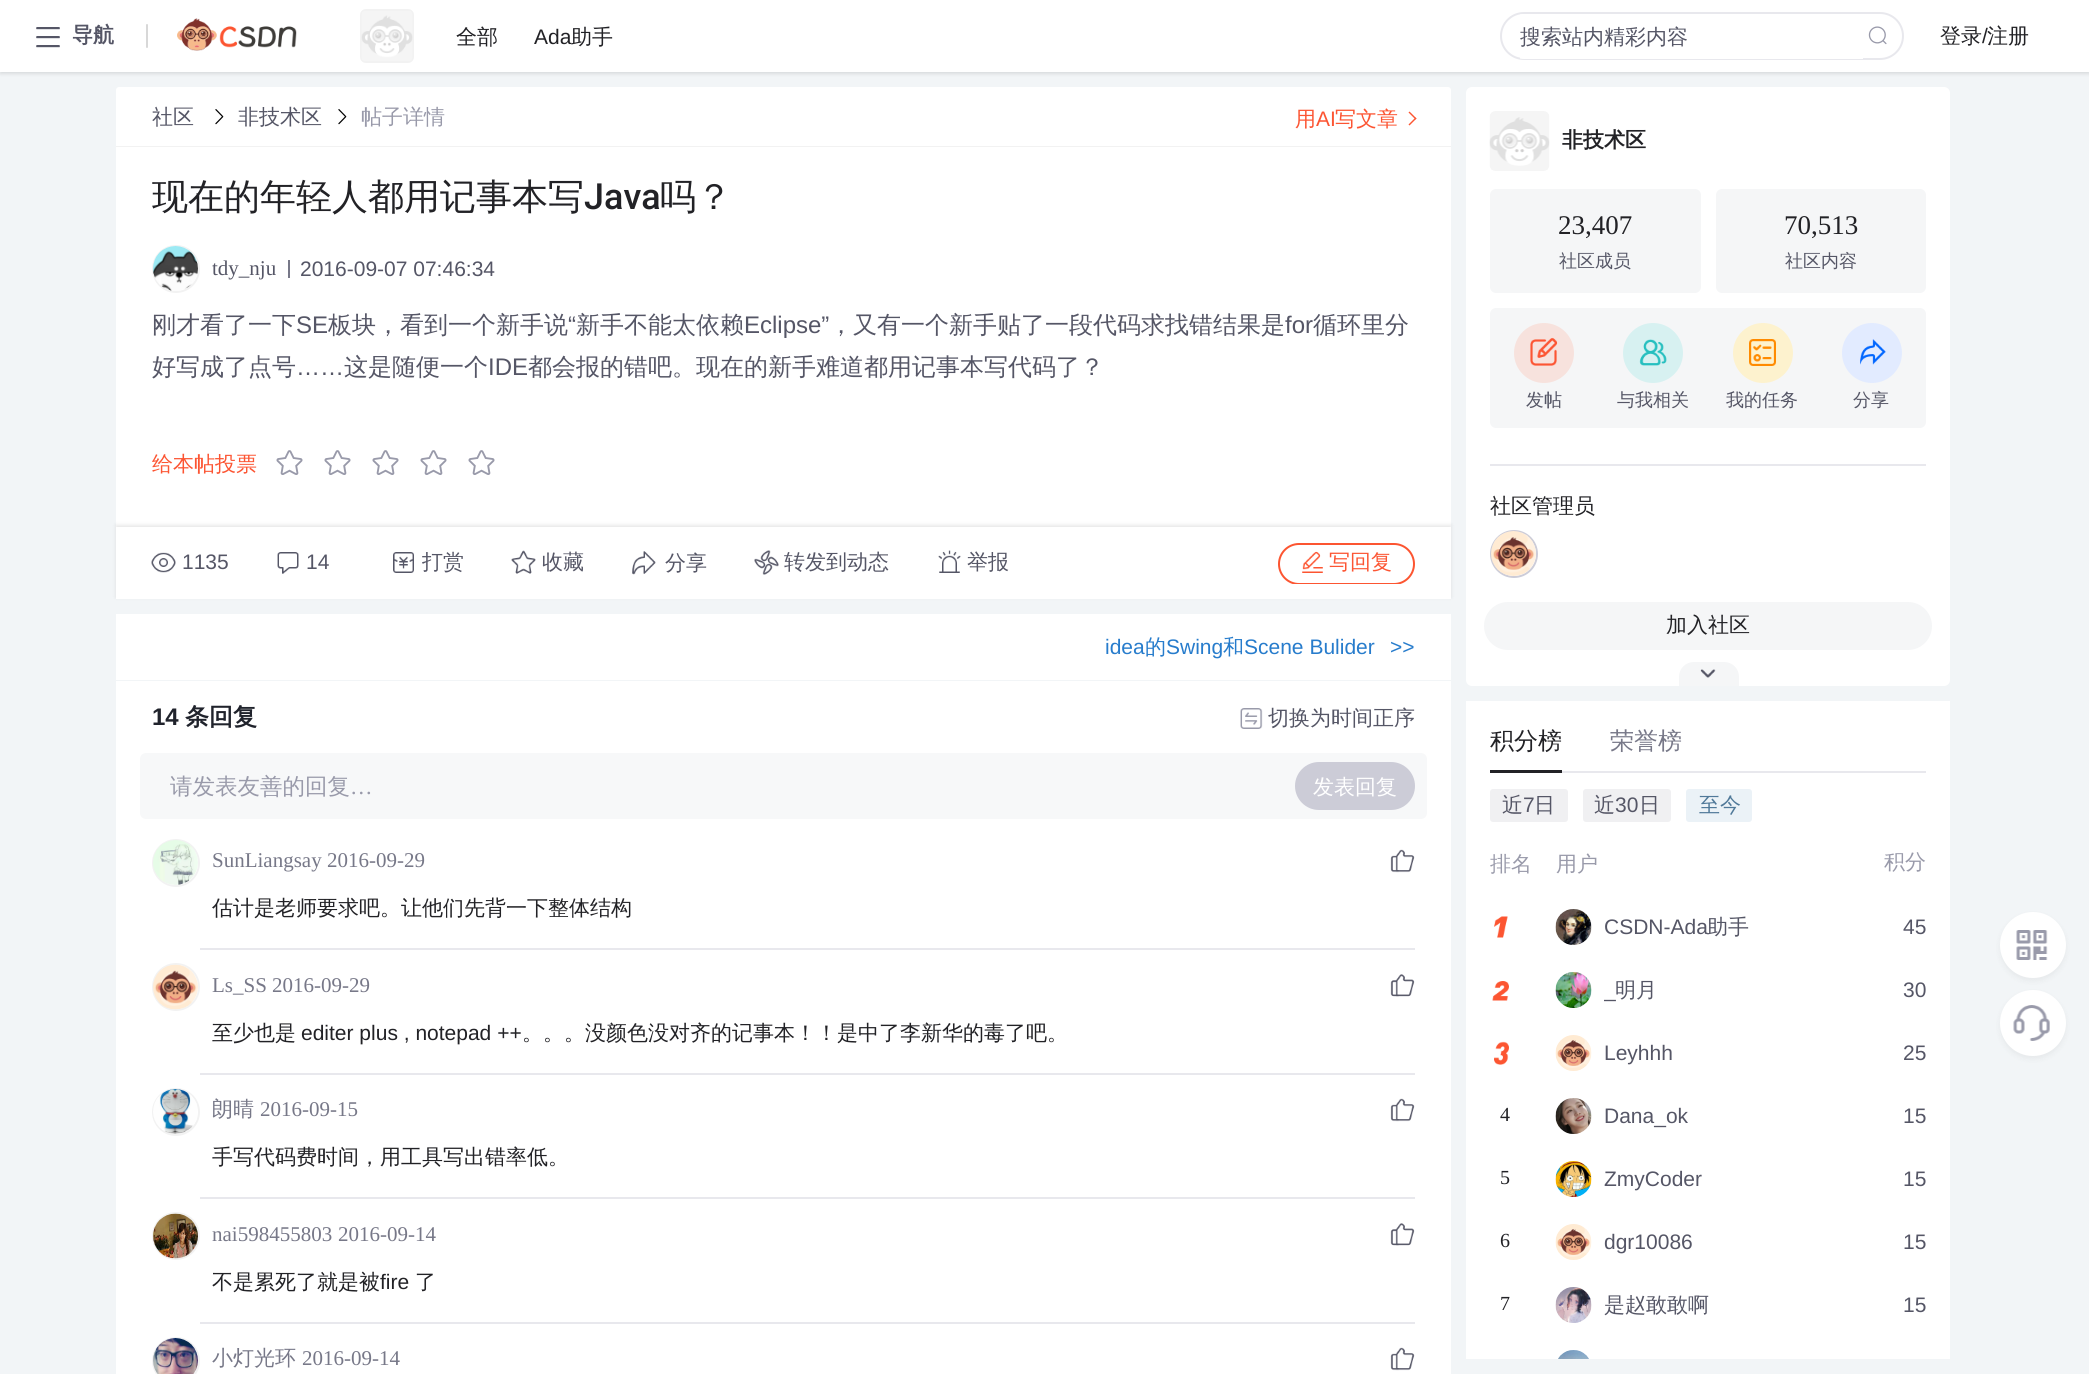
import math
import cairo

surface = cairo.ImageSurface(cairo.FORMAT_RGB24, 2089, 1374)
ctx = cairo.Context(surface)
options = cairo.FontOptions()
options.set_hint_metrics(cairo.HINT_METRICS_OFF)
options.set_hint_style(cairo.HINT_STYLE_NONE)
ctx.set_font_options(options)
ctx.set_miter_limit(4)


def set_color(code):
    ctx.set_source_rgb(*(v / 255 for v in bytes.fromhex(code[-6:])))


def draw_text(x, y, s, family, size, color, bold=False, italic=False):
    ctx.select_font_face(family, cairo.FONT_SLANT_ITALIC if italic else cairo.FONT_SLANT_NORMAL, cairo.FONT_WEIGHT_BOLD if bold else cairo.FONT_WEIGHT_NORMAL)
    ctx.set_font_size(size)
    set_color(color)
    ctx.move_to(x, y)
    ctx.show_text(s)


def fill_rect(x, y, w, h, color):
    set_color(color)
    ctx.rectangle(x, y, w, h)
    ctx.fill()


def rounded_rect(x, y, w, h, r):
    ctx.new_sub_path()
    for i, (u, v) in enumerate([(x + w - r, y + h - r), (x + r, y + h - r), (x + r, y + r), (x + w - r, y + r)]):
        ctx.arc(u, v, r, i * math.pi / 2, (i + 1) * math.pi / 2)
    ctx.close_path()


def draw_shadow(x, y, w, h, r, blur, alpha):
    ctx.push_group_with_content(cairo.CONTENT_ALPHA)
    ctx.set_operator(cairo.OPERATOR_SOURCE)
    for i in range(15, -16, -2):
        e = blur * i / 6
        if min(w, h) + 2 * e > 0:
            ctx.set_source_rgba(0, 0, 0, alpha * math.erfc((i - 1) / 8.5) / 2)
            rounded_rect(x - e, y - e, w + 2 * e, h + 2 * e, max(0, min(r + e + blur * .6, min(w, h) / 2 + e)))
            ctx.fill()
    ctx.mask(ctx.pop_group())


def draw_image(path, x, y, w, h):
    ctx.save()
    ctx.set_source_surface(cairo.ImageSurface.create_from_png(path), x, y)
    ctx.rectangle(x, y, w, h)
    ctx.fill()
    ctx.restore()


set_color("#f2f5f7")
ctx.paint()
set_color("#000000")
draw_shadow(0, 2, 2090, 72, 0, 1.5, 0.1)
fill_rect(0, 0, 2089, 72, "#ffffff")
draw_image("assets/img1.png", 36, 27, 24, 21)
draw_text(72, 42, "导航", "WenQuanYi Zen Hei", 21, "#555666", bold=True)
set_color("#d8d8d8")
rounded_rect(146, 24, 2, 24, 1)
ctx.fill()
draw_image("assets/img2.png", 177, 18, 120, 33)
rounded_rect(361, 10, 52, 52, 5)
set_color("#f2f2f2")
ctx.stroke()
draw_image("assets/img3.png", 361, 11, 52, 50)
draw_text(456, 44, "全部", "WenQuanYi Zen Hei Medium", 21, "#222226")
draw_text(534, 44, "Ada", "Liberation Sans", 21, "#222226")
draw_text(571, 44, "助手", "WenQuanYi Zen Hei Medium", 21, "#222226")
rounded_rect(1501, 13, 402, 46, 23)
set_color("#e8e8ed")
ctx.stroke()
ctx.save()
rounded_rect(1502, 14, 400, 45, 22.5)
ctx.clip()
fill_rect(1520, 14, 343, 45, "#ffffff")
ctx.restore()
draw_text(1520, 44, "搜索站内精彩内容", "WenQuanYi Zen Hei Medium", 21, "#555666")
draw_image("assets/img4.png", 1868, 26, 19, 19)
draw_text(1940, 43, "登录", "WenQuanYi Zen Hei Medium", 21, "#222226")
draw_text(1982, 43, "/", "Liberation Sans", 21, "#222226")
draw_text(1987, 43, "注册", "WenQuanYi Zen Hei Medium", 21, "#222226")
set_color("#ffffff")
ctx.new_path()
ctx.move_to(119, 87)
ctx.line_to(1448, 87)
ctx.curve_to(1449.5, 87, 1451, 88.5, 1451, 90)
ctx.line_to(1451, 147)
ctx.line_to(116, 147)
ctx.line_to(116, 90)
ctx.curve_to(116, 88.5, 117.5, 87, 119, 87)
ctx.close_path()
ctx.fill()
fill_rect(116, 146, 1335, 1, "#f2f2f2")
draw_text(152, 124, "社区", "WenQuanYi Zen Hei Medium", 21, "#555666")
draw_image("assets/img5.png", 215, 109, 9, 16)
draw_text(238, 124, "非技术区", "WenQuanYi Zen Hei Medium", 21, "#555666")
draw_image("assets/img5.png", 338, 109, 9, 16)
draw_text(361, 124, "帖子详情", "WenQuanYi Zen Hei Medium", 21, "#999aaa")
draw_text(1295, 126, "用", "WenQuanYi Zen Hei Medium", 21, "#fc5533")
draw_text(1316, 126, "AI", "Liberation Sans", 21, "#fc5533")
draw_text(1335, 126, "写文章", "WenQuanYi Zen Hei Medium", 21, "#fc5533")
set_color("#fc5531")
ctx.new_path()
ctx.move_to(1408.5, 112.5)
ctx.line_to(1409.5, 111.5)
ctx.line_to(1416.5, 118.5)
ctx.line_to(1415.5, 119.5)
ctx.close_path()
ctx.fill()
ctx.new_path()
ctx.move_to(1408.5, 124.5)
ctx.line_to(1415.5, 117.5)
ctx.line_to(1416.5, 118.5)
ctx.line_to(1409.5, 125.5)
ctx.close_path()
ctx.fill()
fill_rect(116, 147, 1335, 380, "#ffffff")
draw_text(152, 209, "现在的年轻人都用记事本写", "WenQuanYi Zen Hei Medium", 36, "#222226")
draw_text(584, 209, "Java", "Roboto Medium", 36, "#222226")
draw_text(660, 209, "吗？", "WenQuanYi Zen Hei Medium", 36, "#222226")
ctx.new_path()
ctx.arc(176, 269, 23, 0, 2 * math.pi)
set_color("#f2f2f2")
ctx.stroke()
draw_image("assets/img6.png", 153, 246, 45, 45)
draw_text(212, 275, "tdy_nju", "Liberation Serif", 21, "#555666")
fill_rect(288, 260, 2, 18, "#777888")
draw_text(300, 276, "2016-09-07 07:46:34", "Liberation Sans", 21, "#555666")
draw_text(152, 333, "刚才看了一下", "WenQuanYi Zen Hei Medium", 24, "#555666")
draw_text(296, 333, "SE", "Liberation Sans", 24, "#555666")
draw_text(328, 333, "板块，看到一个新手说", "WenQuanYi Zen Hei Medium", 24, "#555666")
draw_text(568, 333, "“", "Liberation Sans", 24, "#555666")
draw_text(576, 333, "新手不能太依赖", "WenQuanYi Zen Hei Medium", 24, "#555666")
draw_text(744, 333, "Eclipse”", "Liberation Sans", 24, "#555666")
draw_text(829, 333, "，又有一个新手贴了一段代码求找错结果是", "WenQuanYi Zen Hei Medium", 24, "#555666")
draw_text(1285, 333, "for", "Liberation Sans", 24, "#555666")
draw_text(1313, 333, "循环里分", "WenQuanYi Zen Hei Medium", 24, "#555666")
draw_text(152, 375, "好写成了点号", "WenQuanYi Zen Hei Medium", 24, "#555666")
draw_text(296, 375, "……", "Liberation Sans", 24, "#555666")
draw_text(344, 375, "这是随便一个", "WenQuanYi Zen Hei Medium", 24, "#555666")
draw_text(488, 375, "IDE", "Liberation Sans", 24, "#555666")
draw_text(528, 375, "都会报的错吧。现在的新手难道都用记事本写代码了？", "WenQuanYi Zen Hei Medium", 24, "#555666")
draw_text(152, 471, "给本帖投票", "WenQuanYi Zen Hei Medium", 21, "#fc5533")
draw_image("assets/img7.png", 276, 450, 27, 25)
draw_image("assets/img7.png", 324, 450, 27, 25)
draw_image("assets/img7.png", 372, 450, 27, 25)
draw_image("assets/img7.png", 420, 450, 27, 25)
draw_image("assets/img7.png", 468, 450, 27, 25)
set_color("#121212")
draw_shadow(116, 525, 1335, 72, 0, 2, 0.1)
fill_rect(116, 527, 1335, 72, "#ffffff")
draw_image("assets/img8.png", 151, 552, 25, 21)
draw_text(182, 569, "1135", "Liberation Sans", 21, "#555666")
draw_image("assets/img9.png", 277, 552, 22, 22)
draw_text(306, 569, "14", "Liberation Sans", 21, "#555666")
draw_image("assets/img10.png", 393, 552, 21, 21)
draw_text(422, 569, "打赏", "WenQuanYi Zen Hei Medium", 21, "#555666")
draw_image("assets/img11.png", 511, 550, 25, 24)
draw_text(542, 569, "收藏", "WenQuanYi Zen Hei Medium", 21, "#555666")
draw_image("assets/img12.png", 632, 551, 24, 24)
draw_text(665, 570, "分享", "WenQuanYi Zen Hei Medium", 21, "#555666")
draw_image("assets/img13.png", 754, 550, 25, 25)
draw_text(784, 569, "转发到动态", "WenQuanYi Zen Hei Medium", 21, "#555666")
draw_image("assets/img14.png", 938, 550, 23, 23)
draw_text(967, 569, "举报", "WenQuanYi Zen Hei Medium", 21, "#555666")
ctx.save()
ctx.rectangle(116, 542, 1335, 42)
ctx.clip()
rounded_rect(1279, 544, 135, 40, 20)
set_color("#fc5531")
ctx.stroke()
ctx.restore()
draw_image("assets/img15.png", 1302, 551, 21, 22)
draw_text(1329, 569, "写回复", "WenQuanYi Zen Hei Medium", 21, "#fc5533")
fill_rect(116, 614, 1335, 66, "#ffffff")
draw_text(1105, 654, "idea", "Liberation Sans", 21, "#277ccc")
draw_text(1145, 654, "的", "WenQuanYi Zen Hei Medium", 21, "#277ccc")
draw_text(1166, 654, "Swing", "Liberation Sans", 21, "#277ccc")
draw_text(1223, 654, "和", "WenQuanYi Zen Hei Medium", 21, "#277ccc")
draw_text(1244, 654, "Scene Bulider", "Liberation Sans", 21, "#277ccc")
draw_text(1390, 654, ">>", "Liberation Sans", 21, "#277ccc")
fill_rect(116, 681, 1335, 693, "#ffffff")
draw_text(152, 725, "14", "Liberation Sans", 24, "#20232c", bold=True)
draw_text(185, 725, "条回复", "WenQuanYi Zen Hei", 24, "#20232c", bold=True)
draw_image("assets/img16.png", 1240, 708, 23, 21)
draw_text(1268, 725, "切换为时间正序", "WenQuanYi Zen Hei Medium", 21, "#555666")
set_color("#f7f8f9")
rounded_rect(140, 753, 1287, 66, 6)
ctx.fill()
draw_text(170, 794, "请发表友善的回复", "WenQuanYi Zen Hei Medium", 22.5, "#999aaa")
draw_text(350, 794, "…", "Liberation Serif", 22.5, "#999aaa")
set_color("#ccccd7")
rounded_rect(1295, 762, 120, 48, 24)
ctx.fill()
draw_text(1313, 794, "发表回复", "WenQuanYi Zen Hei Medium", 21, "#ffffff")
ctx.new_path()
ctx.arc(176, 863, 23, 0, 2 * math.pi)
set_color("#f2f2f2")
ctx.stroke()
draw_image("assets/img17.png", 153, 840, 45, 45)
draw_text(212, 867, "SunLiangsay", "Liberation Serif", 21, "#777888")
draw_text(327, 867, "2016-09-29", "Liberation Serif", 21, "#777888")
draw_image("assets/img18.png", 1390, 849, 25, 24)
draw_text(212, 915, "估计是老师要求吧。让他们先背一下整体结构", "WenQuanYi Zen Hei Medium", 21, "#222226")
fill_rect(200, 948, 1215, 2, "#e8e8ed")
ctx.new_path()
ctx.arc(176, 987, 23, 0, 2 * math.pi)
set_color("#f2f2f2")
ctx.stroke()
draw_image("assets/img19.png", 153, 964, 45, 46)
draw_text(212, 992, "Ls_SS", "Liberation Serif", 21, "#777888")
draw_text(272, 992, "2016-09-29", "Liberation Serif", 21, "#777888")
draw_image("assets/img20.png", 1390, 974, 25, 23)
draw_text(212, 1040, "至少也是", "WenQuanYi Zen Hei Medium", 21, "#222226")
draw_text(301, 1040, "editer plus , notepad ++", "Liberation Sans", 21, "#222226")
draw_text(522, 1040, "。。。没颜色没对齐的记事本！！是中了李新华的毒了吧。", "WenQuanYi Zen Hei Medium", 21, "#222226")
fill_rect(200, 1073, 1215, 2, "#e8e8ed")
ctx.new_path()
ctx.arc(176, 1112, 23, 0, 2 * math.pi)
set_color("#f2f2f2")
ctx.stroke()
draw_image("assets/img21.png", 153, 1089, 44, 45)
draw_text(212, 1116, "朗晴", "WenQuanYi Zen Hei Medium", 21, "#777888")
draw_text(260, 1116, "2016-09-15", "Liberation Serif", 21, "#777888")
draw_image("assets/img18.png", 1390, 1098, 25, 24)
draw_text(212, 1164, "手写代码费时间，用工具写出错率低。", "WenQuanYi Zen Hei Medium", 21, "#222226")
fill_rect(200, 1197, 1215, 2, "#e8e8ed")
ctx.new_path()
ctx.arc(176, 1236, 23, 0, 2 * math.pi)
set_color("#f2f2f2")
ctx.stroke()
draw_image("assets/img22.png", 153, 1213, 45, 46)
draw_text(212, 1241, "nai598455803", "Liberation Serif", 21, "#777888")
draw_text(338, 1241, "2016-09-14", "Liberation Serif", 21, "#777888")
draw_image("assets/img20.png", 1390, 1223, 25, 23)
draw_text(212, 1289, "不是累死了就是被", "WenQuanYi Zen Hei Medium", 21, "#222226")
draw_text(380, 1289, "fire", "Liberation Sans", 21, "#222226")
draw_text(415, 1289, "了", "WenQuanYi Zen Hei Medium", 21, "#222226")
fill_rect(200, 1322, 1215, 2, "#e8e8ed")
ctx.new_path()
ctx.arc(176, 1361, 23, 0, 2 * math.pi)
set_color("#f2f2f2")
ctx.stroke()
draw_image("assets/img23.png", 153, 1338, 45, 36)
draw_text(212, 1365, "小灯光环", "WenQuanYi Zen Hei Medium", 21, "#777888")
draw_text(302, 1365, "2016-09-14", "Liberation Serif", 21, "#777888")
draw_image("assets/img18.png", 1390, 1347, 25, 24)
set_color("#ffffff")
rounded_rect(1466, 87, 484, 599, 6)
ctx.fill()
draw_image("assets/img24.png", 1489, 111, 61, 60)
draw_text(1562, 147, "非技术区", "WenQuanYi Zen Hei", 21, "#222226", bold=True)
set_color("#f5f6f7")
rounded_rect(1490, 189, 211, 104, 6)
ctx.fill()
draw_text(1558, 234, "23,407", "Liberation Serif", 27, "#222226")
draw_text(1559, 267, "社区成员", "WenQuanYi Zen Hei Medium", 18, "#555666")
set_color("#f5f6f7")
rounded_rect(1716, 189, 210, 104, 6)
ctx.fill()
draw_text(1784, 234, "70,513", "Liberation Serif", 27, "#222226")
draw_text(1785, 267, "社区内容", "WenQuanYi Zen Hei Medium", 18, "#555666")
set_color("#f5f6f7")
rounded_rect(1490, 308, 436, 120, 6)
ctx.fill()
set_color("#f7e2dd")
ctx.arc(1544, 353, 30, 0, 2 * math.pi)
ctx.fill()
draw_image("assets/img25.png", 1530, 337, 28, 29)
draw_text(1526, 406, "发帖", "WenQuanYi Zen Hei Medium", 18, "#555666")
set_color("#d7f1f1")
ctx.new_path()
ctx.arc(1653, 353, 30, 0, 2 * math.pi)
ctx.fill()
draw_image("assets/img26.png", 1639, 339, 28, 27)
draw_text(1617, 406, "与我相关", "WenQuanYi Zen Hei Medium", 18, "#555666")
set_color("#fdf2ce")
ctx.new_path()
ctx.arc(1763, 353, 30, 0, 2 * math.pi)
ctx.fill()
draw_image("assets/img27.png", 1749, 339, 27, 27)
draw_text(1726, 406, "我的任务", "WenQuanYi Zen Hei Medium", 18, "#555666")
set_color("#e2ebff")
ctx.new_path()
ctx.arc(1872, 353, 30, 0, 2 * math.pi)
ctx.fill()
draw_image("assets/img28.png", 1860, 339, 26, 26)
draw_text(1853, 406, "分享", "WenQuanYi Zen Hei Medium", 18, "#555666")
fill_rect(1490, 464, 436, 2, "#e8e8ed")
draw_text(1490, 513, "社区管理员", "WenQuanYi Zen Hei Medium", 21, "#222226")
ctx.new_path()
ctx.arc(1514, 554, 23, 0, 2 * math.pi)
set_color("#ccccd8")
ctx.stroke()
draw_image("assets/img29.png", 1491, 531, 45, 45)
set_color("#f5f6f7")
rounded_rect(1484, 602, 448, 48, 24)
ctx.fill()
draw_text(1666, 632, "加入社区", "WenQuanYi Zen Hei Medium", 21, "#222226")
set_color("#f5f6f7")
ctx.new_path()
ctx.move_to(1694, 662)
ctx.line_to(1724, 662)
ctx.curve_to(1732.5, 662, 1739, 668.5, 1739, 677)
ctx.line_to(1739, 686)
ctx.line_to(1679, 686)
ctx.line_to(1679, 677)
ctx.curve_to(1679, 668.5, 1685.5, 662, 1694, 662)
ctx.close_path()
ctx.fill()
draw_image("assets/img30.png", 1700, 669, 16, 9)
fill_rect(1466, 701, 484, 658, "#ffffff")
draw_text(1490, 749, "积分榜", "WenQuanYi Zen Hei Medium", 24, "#222226")
draw_text(1610, 749, "荣誉榜", "WenQuanYi Zen Hei Medium", 24, "#777888")
fill_rect(1490, 770, 72, 3, "#222226")
fill_rect(1562, 771, 364, 2, "#e8e8ed")
set_color("#f0f0f2")
rounded_rect(1490, 789, 78, 33, 3)
ctx.fill()
draw_text(1502, 812, "近", "WenQuanYi Zen Hei Medium", 21, "#555666")
draw_text(1523, 812, "7", "Liberation Sans", 21, "#555666")
draw_text(1534, 812, "日", "WenQuanYi Zen Hei Medium", 21, "#555666")
set_color("#f0f0f2")
rounded_rect(1583, 789, 88, 33, 3)
ctx.fill()
draw_text(1594, 812, "近", "WenQuanYi Zen Hei Medium", 21, "#555666")
draw_text(1615, 812, "30", "Liberation Sans", 21, "#555666")
draw_text(1639, 812, "日", "WenQuanYi Zen Hei Medium", 21, "#555666")
set_color("#ebf2f7")
rounded_rect(1686, 789, 66, 33, 3)
ctx.fill()
draw_text(1699, 812, "至今", "WenQuanYi Zen Hei Medium", 21, "#507999")
draw_text(1490, 871, "排名", "WenQuanYi Zen Hei Medium", 21, "#999aaa")
draw_text(1556, 871, "用户", "WenQuanYi Zen Hei Medium", 21, "#999aaa")
draw_text(1884, 869, "积分", "WenQuanYi Zen Hei Medium", 21, "#999aaa")
draw_image("assets/img31.png", 1494, 916, 14, 22)
draw_image("assets/img32.png", 1555, 909, 37, 36)
draw_text(1604, 934, "CSDN-Ada", "Liberation Sans", 21, "#555666")
draw_text(1707, 934, "助手", "WenQuanYi Zen Hei Medium", 21, "#555666")
draw_text(1903, 934, "45", "Liberation Sans", 21, "#555666")
draw_image("assets/img33.png", 1492, 981, 17, 20)
draw_image("assets/img34.png", 1555, 972, 37, 36)
draw_text(1615, 997, "明月", "WenQuanYi Zen Hei Medium", 21, "#555666")
ctx.save()
ctx.rectangle(1604, 966, 54, 48)
ctx.clip()
draw_text(1604, 997, "_", "Liberation Sans", 21, "#555666")
ctx.restore()
draw_text(1903, 997, "30", "Liberation Sans", 21, "#555666")
draw_image("assets/img35.png", 1494, 1041, 15, 24)
draw_image("assets/img36.png", 1555, 1035, 37, 36)
draw_text(1604, 1060, "Leyhhh", "Liberation Sans", 21, "#555666")
draw_text(1903, 1060, "25", "Liberation Sans", 21, "#555666")
draw_text(1500, 1121, "4", "Liberation Serif", 20, "#222226")
draw_image("assets/img37.png", 1555, 1098, 37, 36)
draw_text(1604, 1123, "Dana_ok", "Liberation Sans", 21, "#555666")
draw_text(1903, 1123, "15", "Liberation Sans", 21, "#555666")
draw_text(1500, 1184, "5", "Liberation Serif", 20, "#222226")
draw_image("assets/img38.png", 1555, 1161, 37, 36)
draw_text(1604, 1186, "ZmyCoder", "Liberation Sans", 21, "#555666")
draw_text(1903, 1186, "15", "Liberation Sans", 21, "#555666")
draw_text(1500, 1247, "6", "Liberation Serif", 20, "#222226")
draw_image("assets/img36.png", 1555, 1224, 37, 36)
draw_text(1604, 1249, "dgr10086", "Liberation Sans", 21, "#555666")
draw_text(1903, 1249, "15", "Liberation Sans", 21, "#555666")
draw_text(1500, 1310, "7", "Liberation Serif", 20, "#222226")
draw_image("assets/img39.png", 1555, 1287, 37, 36)
draw_text(1604, 1312, "是赵敢敢啊", "WenQuanYi Zen Hei Medium", 21, "#555666")
draw_text(1903, 1312, "15", "Liberation Sans", 21, "#555666")
draw_image("assets/img40.png", 1558, 1350, 31, 9)
set_color("#000000")
draw_shadow(2000, 915, 66, 66, 33, 3, 0.05)
set_color("#ffffff")
ctx.arc(2033, 945, 33, 0, 2 * math.pi)
ctx.fill()
draw_image("assets/img41.png", 2016, 930, 32, 30)
set_color("#000000")
draw_shadow(2000, 993, 66, 66, 33, 3, 0.05)
set_color("#ffffff")
ctx.arc(2033, 1023, 33, 0, 2 * math.pi)
ctx.fill()
draw_image("assets/img42.png", 2013, 1005, 37, 36)
surface.write_to_png("output.png")
